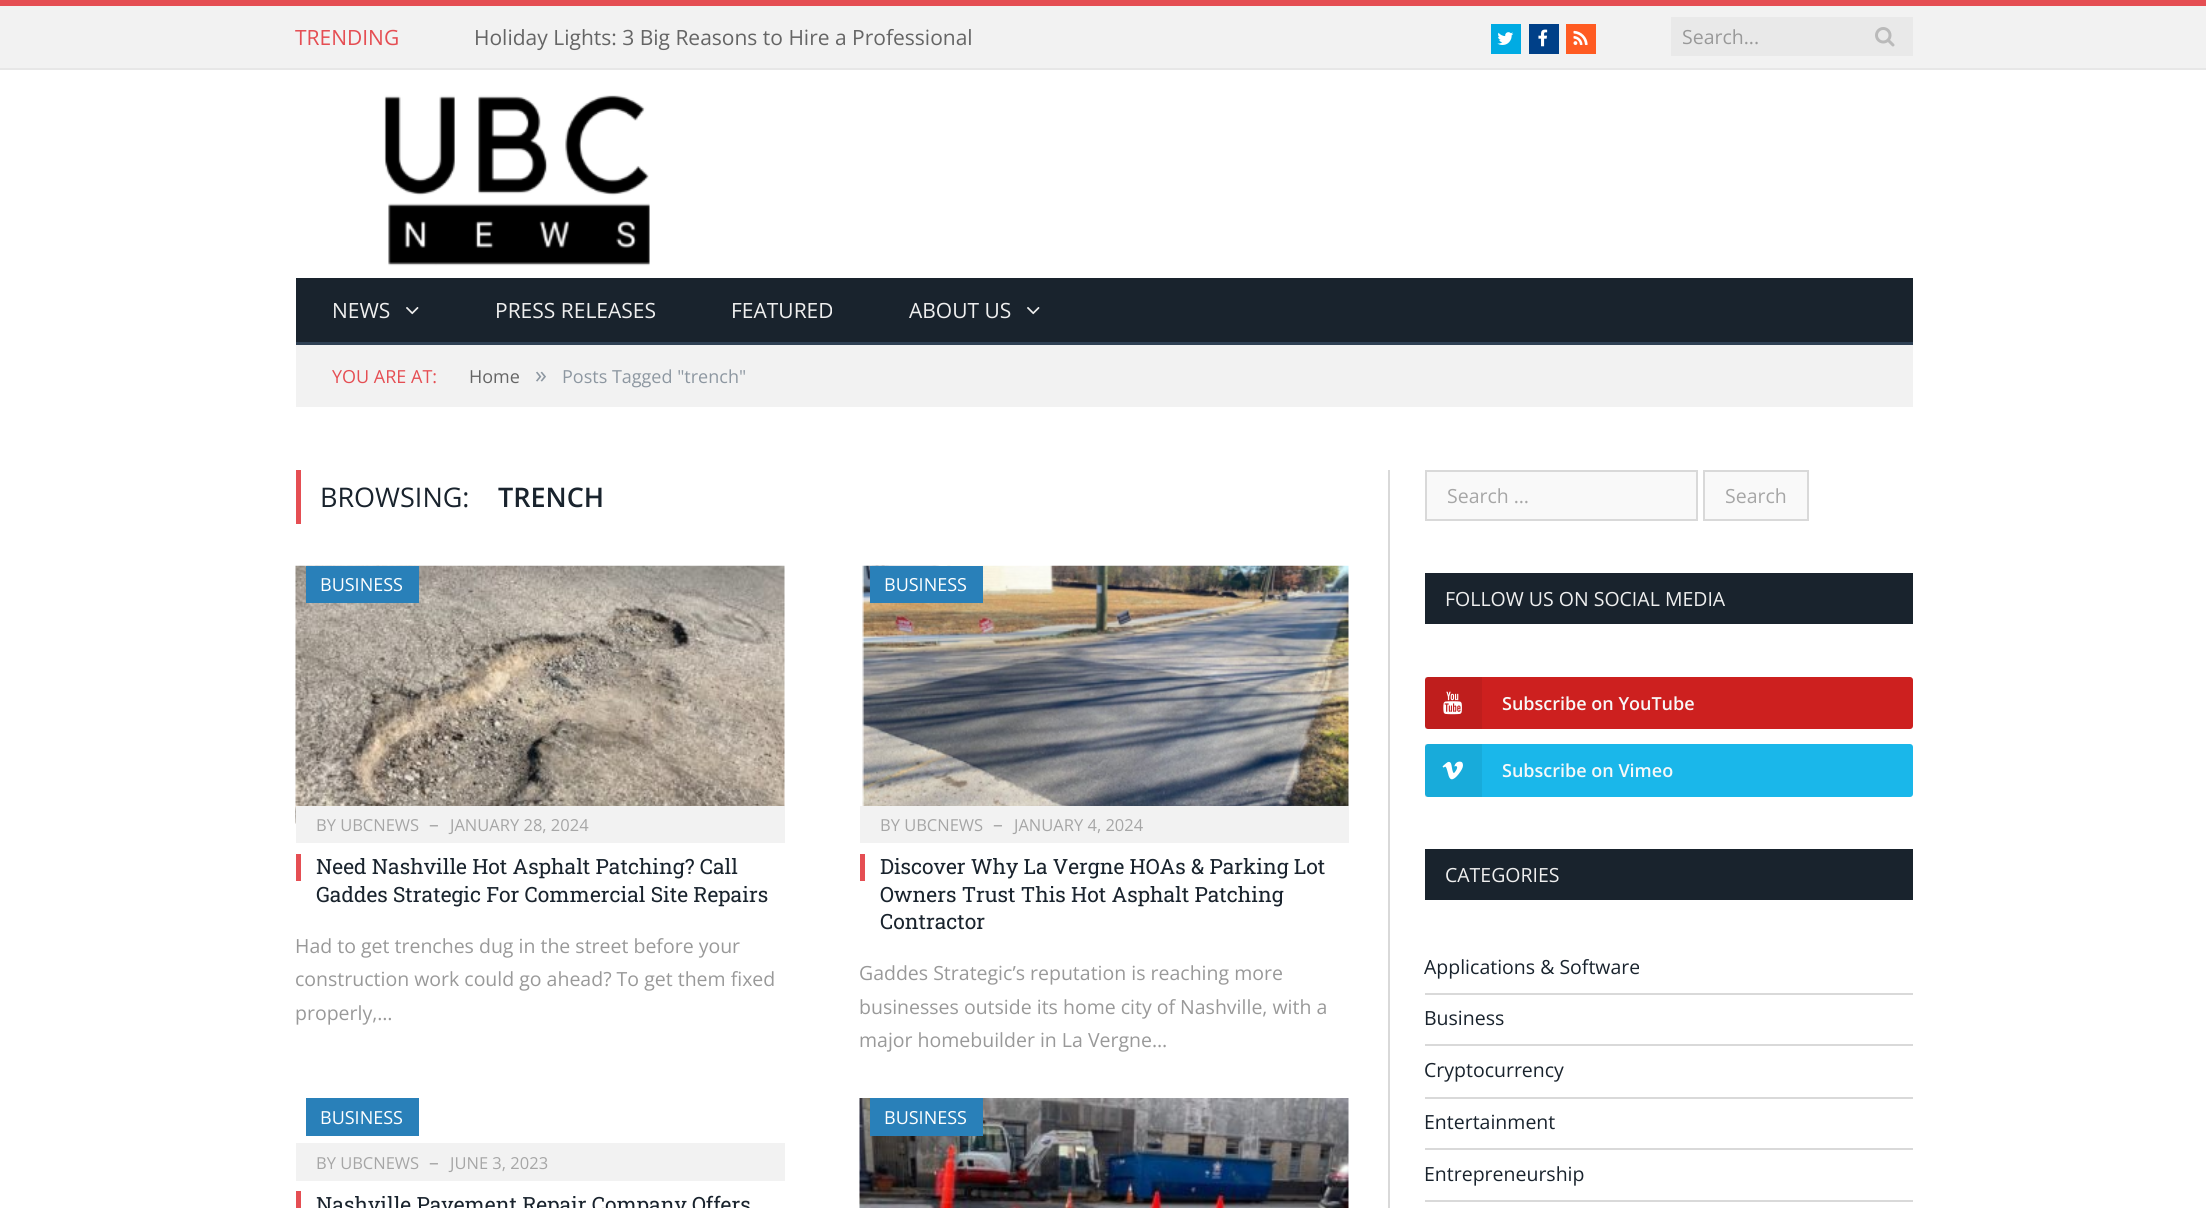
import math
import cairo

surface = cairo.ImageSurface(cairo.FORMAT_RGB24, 2206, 1208)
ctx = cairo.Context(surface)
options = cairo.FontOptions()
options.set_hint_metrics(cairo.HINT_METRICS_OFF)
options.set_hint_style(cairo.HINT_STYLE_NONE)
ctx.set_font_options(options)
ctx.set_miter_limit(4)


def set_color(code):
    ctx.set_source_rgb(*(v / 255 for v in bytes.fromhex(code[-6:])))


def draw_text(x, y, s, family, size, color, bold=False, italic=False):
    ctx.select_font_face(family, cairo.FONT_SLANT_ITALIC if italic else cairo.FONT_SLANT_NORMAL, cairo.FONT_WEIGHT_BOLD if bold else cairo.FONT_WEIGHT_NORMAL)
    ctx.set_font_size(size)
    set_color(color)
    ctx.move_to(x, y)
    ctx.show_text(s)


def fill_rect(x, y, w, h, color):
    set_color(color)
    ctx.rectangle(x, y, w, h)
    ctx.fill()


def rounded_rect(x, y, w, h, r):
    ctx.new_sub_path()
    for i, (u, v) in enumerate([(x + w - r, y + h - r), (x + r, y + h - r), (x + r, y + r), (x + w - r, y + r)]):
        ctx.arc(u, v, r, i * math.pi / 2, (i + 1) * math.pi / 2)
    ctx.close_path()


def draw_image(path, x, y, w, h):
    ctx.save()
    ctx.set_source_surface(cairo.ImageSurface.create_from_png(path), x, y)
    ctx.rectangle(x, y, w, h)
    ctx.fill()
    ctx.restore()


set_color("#ffffff")
ctx.paint()
fill_rect(0, 6, 2206, 62, "#f2f2f2")
fill_rect(0, 0, 2206, 6, "#e54e53")
fill_rect(0, 68, 2206, 2, "#e7e7e7")
draw_text(295, 45, "TRENDING", "Open Sans", 21, "#e54e53")
draw_text(474, 45, "Holiday Lights: 3 Big Reasons to Hire a Professional", "Open Sans", 21, "#656565")
fill_rect(1491, 24, 30, 30, "#00abe3")
draw_image("assets/img1.png", 1497, 32, 17, 13)
fill_rect(1529, 24, 30, 30, "#004088")
draw_image("assets/img2.png", 1538, 29, 10, 18)
fill_rect(1566, 24, 30, 30, "#ff5b22")
draw_image("assets/img3.png", 1573, 30, 15, 15)
fill_rect(1671, 17, 242, 39, "#e9e9e9")
draw_text(1682, 44, "Search...", "Open Sans", 19.5, "#999999")
draw_image("assets/img4.png", 1875, 27, 20, 20)
draw_image("assets/img5.png", 384, 95, 266, 171)
fill_rect(296, 278, 1617, 64, "#19232d")
fill_rect(296, 342, 1617, 3, "#2f4154")
draw_text(332, 318, "NEWS", "Open Sans", 21, "#efefef")
draw_image("assets/img6.png", 406, 307, 13, 8)
draw_text(495, 318, "PRESS RELEASES", "Open Sans", 21, "#efefef")
draw_text(731, 318, "FEATURED", "Open Sans", 21, "#efefef")
draw_text(909, 318, "ABOUT US", "Open Sans", 21, "#efefef")
draw_image("assets/img6.png", 1027, 307, 13, 8)
fill_rect(296, 345, 1617, 62, "#f2f2f2")
draw_text(332, 383, "YOU ARE AT:", "Open Sans", 18, "#e54e53")
draw_text(469, 383, "Home", "Open Sans", 18, "#656565")
draw_text(535, 383, "»", "Open Sans", 24, "#8d97a1")
draw_text(562, 383, "Posts Tagged \"trench\"", "Open Sans", 18, "#8d97a1")
fill_rect(296, 470, 5, 54, "#e54e53")
draw_text(320, 507, "BROWSING:", "Open Sans", 27, "#19232d")
draw_text(498, 507, "TRENCH", "Open Sans SemiBold", 27, "#19232d")
draw_image("assets/img7.png", 295, 565, 490, 259)
fill_rect(306, 566, 113, 37, "#2980b9")
draw_text(320, 591, "BUSINESS", "Open Sans", 18, "#ffffff")
fill_rect(296, 806, 489, 37, "#f2f2f2")
draw_text(316, 831, "BY UBCNEWS", "Open Sans", 16.5, "#a6a6a6")
draw_text(429, 831, "–", "Open Sans", 19.5, "#a6a6a6")
draw_text(450, 831, "JANUARY 28, 2024", "Open Sans", 16.5, "#a6a6a6")
fill_rect(296, 854, 5, 27, "#e54e53")
draw_text(316, 874, "Need Nashville Hot Asphalt Patching? Call", "Roboto Slab", 21, "#19232d")
draw_text(316, 902, "Gaddes Strategic For Commercial Site Repairs", "Roboto Slab", 21, "#19232d")
draw_text(295, 953, "Had to get trenches dug in the street before your", "Open Sans", 19.5, "#999999")
draw_text(295, 986, "construction work could go ahead? To get them fixed", "Open Sans", 19.5, "#999999")
draw_text(295, 1020, "properly,…", "Open Sans", 19.5, "#999999")
draw_image("assets/img8.png", 862, 565, 487, 241)
fill_rect(870, 566, 113, 37, "#2980b9")
draw_text(884, 591, "BUSINESS", "Open Sans", 18, "#ffffff")
fill_rect(860, 806, 489, 37, "#f2f2f2")
draw_text(880, 831, "BY UBCNEWS", "Open Sans", 16.5, "#a6a6a6")
draw_text(993, 831, "–", "Open Sans", 19.5, "#a6a6a6")
draw_text(1014, 831, "JANUARY 4, 2024", "Open Sans", 16.5, "#a6a6a6")
fill_rect(860, 854, 5, 27, "#e54e53")
draw_text(880, 874, "Discover Why La Vergne HOAs & Parking Lot", "Roboto Slab", 21, "#19232d")
draw_text(880, 902, "Owners Trust This Hot Asphalt Patching", "Roboto Slab", 21, "#19232d")
draw_text(880, 929, "Contractor", "Roboto Slab", 21, "#19232d")
draw_text(859, 980, "Gaddes Strategic’s reputation is reaching more", "Open Sans", 19.5, "#999999")
draw_text(859, 1014, "businesses outside its home city of Nashville, with a", "Open Sans", 19.5, "#999999")
draw_text(859, 1047, "major homebuilder in La Vergne…", "Open Sans", 19.5, "#999999")
fill_rect(306, 1098, 113, 38, "#2980b9")
draw_text(320, 1124, "BUSINESS", "Open Sans", 18, "#ffffff")
fill_rect(296, 1143, 489, 38, "#f2f2f2")
draw_text(316, 1169, "BY UBCNEWS", "Open Sans", 16.5, "#a6a6a6")
draw_text(429, 1169, "–", "Open Sans", 19.5, "#a6a6a6")
draw_text(450, 1169, "JUNE 3, 2023", "Open Sans", 16.5, "#a6a6a6")
fill_rect(296, 1191, 5, 17, "#e54e53")
draw_text(316, 1212, "Nashville Pavement Repair Company Offers", "Roboto Slab", 21, "#19232d")
draw_image("assets/img9.png", 859, 1098, 490, 110)
fill_rect(870, 1098, 113, 38, "#2980b9")
draw_text(884, 1124, "BUSINESS", "Open Sans", 18, "#ffffff")
fill_rect(1388, 470, 2, 738, "#d9d9d9")
set_color("#f9f9f9")
ctx.rectangle(1426, 471, 271, 49)
ctx.fill_preserve()
set_color("#d9d9d9")
ctx.stroke()
draw_text(1447, 503, "Search …", "Open Sans", 19.5, "#a6a6a6")
set_color("#f9f9f9")
ctx.rectangle(1704, 471, 104, 49)
ctx.fill_preserve()
set_color("#d9d9d9")
ctx.stroke()
draw_text(1725, 503, "Search", "Open Sans", 19.5, "#a6a6a6")
fill_rect(1425, 573, 488, 51, "#19232d")
draw_text(1445, 606, "FOLLOW US ON SOCIAL MEDIA", "Open Sans", 19.5, "#efefef")
set_color("#cd201f")
rounded_rect(1425, 677, 488, 52, 3)
ctx.fill()
ctx.set_source_rgba(0, 0, 0, 0.07)
ctx.rectangle(1425, 677, 57, 52)
ctx.fill()
draw_image("assets/img10.png", 1443, 691, 19, 24)
draw_text(1502, 710, "Subscribe on YouTube", "Open Sans SemiBold", 18, "#f8f8f8")
set_color("#1ab7ea")
rounded_rect(1425, 744, 488, 53, 3)
ctx.fill()
ctx.set_source_rgba(0, 0, 0, 0.07)
ctx.rectangle(1425, 744, 57, 53)
ctx.fill()
draw_image("assets/img11.png", 1442, 761, 21, 19)
draw_text(1502, 777, "Subscribe on Vimeo", "Open Sans SemiBold", 18, "#f8f8f8")
fill_rect(1425, 849, 488, 51, "#19232d")
draw_text(1445, 882, "CATEGORIES", "Open Sans", 19.5, "#efefef")
fill_rect(1425, 993, 488, 2, "#d9d9d9")
draw_text(1424, 974, "Applications & Software", "Open Sans", 19.5, "#19232d")
fill_rect(1425, 1044, 488, 2, "#d9d9d9")
draw_text(1424, 1025, "Business", "Open Sans", 19.5, "#19232d")
fill_rect(1425, 1097, 488, 2, "#d9d9d9")
draw_text(1424, 1077, "Cryptocurrency", "Open Sans", 19.5, "#19232d")
fill_rect(1425, 1148, 488, 2, "#d9d9d9")
draw_text(1424, 1129, "Entertainment", "Open Sans", 19.5, "#19232d")
fill_rect(1425, 1200, 488, 2, "#d9d9d9")
draw_text(1424, 1181, "Entrepreneurship", "Open Sans", 19.5, "#19232d")
surface.write_to_png("output.png")
